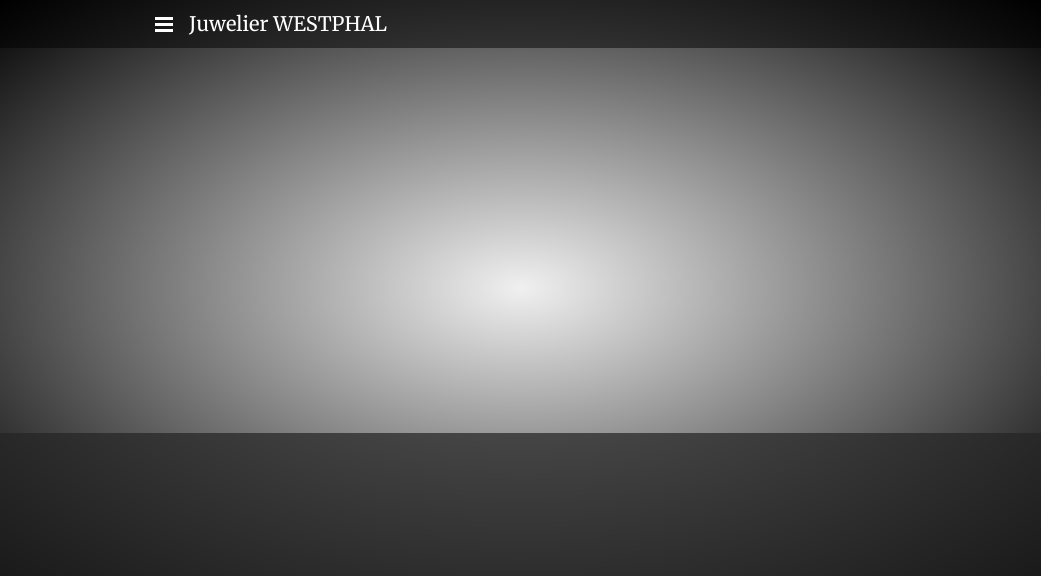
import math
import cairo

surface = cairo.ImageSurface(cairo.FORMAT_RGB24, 1041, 576)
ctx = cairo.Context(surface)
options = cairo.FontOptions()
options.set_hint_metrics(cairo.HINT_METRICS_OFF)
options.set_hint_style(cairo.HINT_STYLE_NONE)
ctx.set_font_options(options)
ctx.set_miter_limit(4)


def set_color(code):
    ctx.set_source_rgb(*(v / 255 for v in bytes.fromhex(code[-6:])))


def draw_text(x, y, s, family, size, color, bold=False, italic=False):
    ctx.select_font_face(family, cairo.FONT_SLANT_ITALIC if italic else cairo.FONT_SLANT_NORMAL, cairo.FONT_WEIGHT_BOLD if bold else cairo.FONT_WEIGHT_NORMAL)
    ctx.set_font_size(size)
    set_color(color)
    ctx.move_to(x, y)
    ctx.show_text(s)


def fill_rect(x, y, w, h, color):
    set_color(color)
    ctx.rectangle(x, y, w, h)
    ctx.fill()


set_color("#ffffff")
ctx.paint()
gradient = cairo.RadialGradient(0, 0, 0, 0, 0, 1)
gradient.set_matrix(cairo.Matrix(1 / 736, 0, 0, 1 / 407, -1 * 521 / 736, -1 * 288 / 407))
gradient.add_color_stop_rgba(0, 0.941, 0.941, 0.941, 1)
gradient.add_color_stop_rgba(1, 0, 0, 0, 1)
ctx.set_source(gradient)
ctx.rectangle(0, 48, 1041, 385)
ctx.fill()
gradient = cairo.RadialGradient(0, 0, 0, 0, 0, 1)
gradient.set_matrix(cairo.Matrix(1 / 736, 0, 0, 1 / 407, -1 * 521 / 736, -1 * 288 / 407))
gradient.add_color_stop_rgba(0, 0.471, 0.471, 0.471, 1)
gradient.add_color_stop_rgba(1, 0, 0, 0, 1)
ctx.set_source(gradient)
ctx.rectangle(0, 0, 1041, 48)
ctx.fill()
gradient = cairo.RadialGradient(0, 0, 0, 0, 0, 1)
gradient.set_matrix(cairo.Matrix(1 / 736, 0, 0, 1 / 407, -1 * 521 / 736, -1 * 288 / 407))
gradient.add_color_stop_rgba(0, 0.365, 0.365, 0.365, 1)
gradient.add_color_stop_rgba(1, 0.102, 0.102, 0.102, 1)
ctx.set_source(gradient)
ctx.rectangle(0, 433, 1041, 143)
ctx.fill()
fill_rect(155, 17, 18, 3, "#ffffff")
fill_rect(155, 23, 18, 3, "#ffffff")
fill_rect(155, 29, 18, 3, "#ffffff")
draw_text(189, 31, "Juwelier WESTPHAL", "Merriweather", 20, "#ffffff")
surface.write_to_png("output.png")
